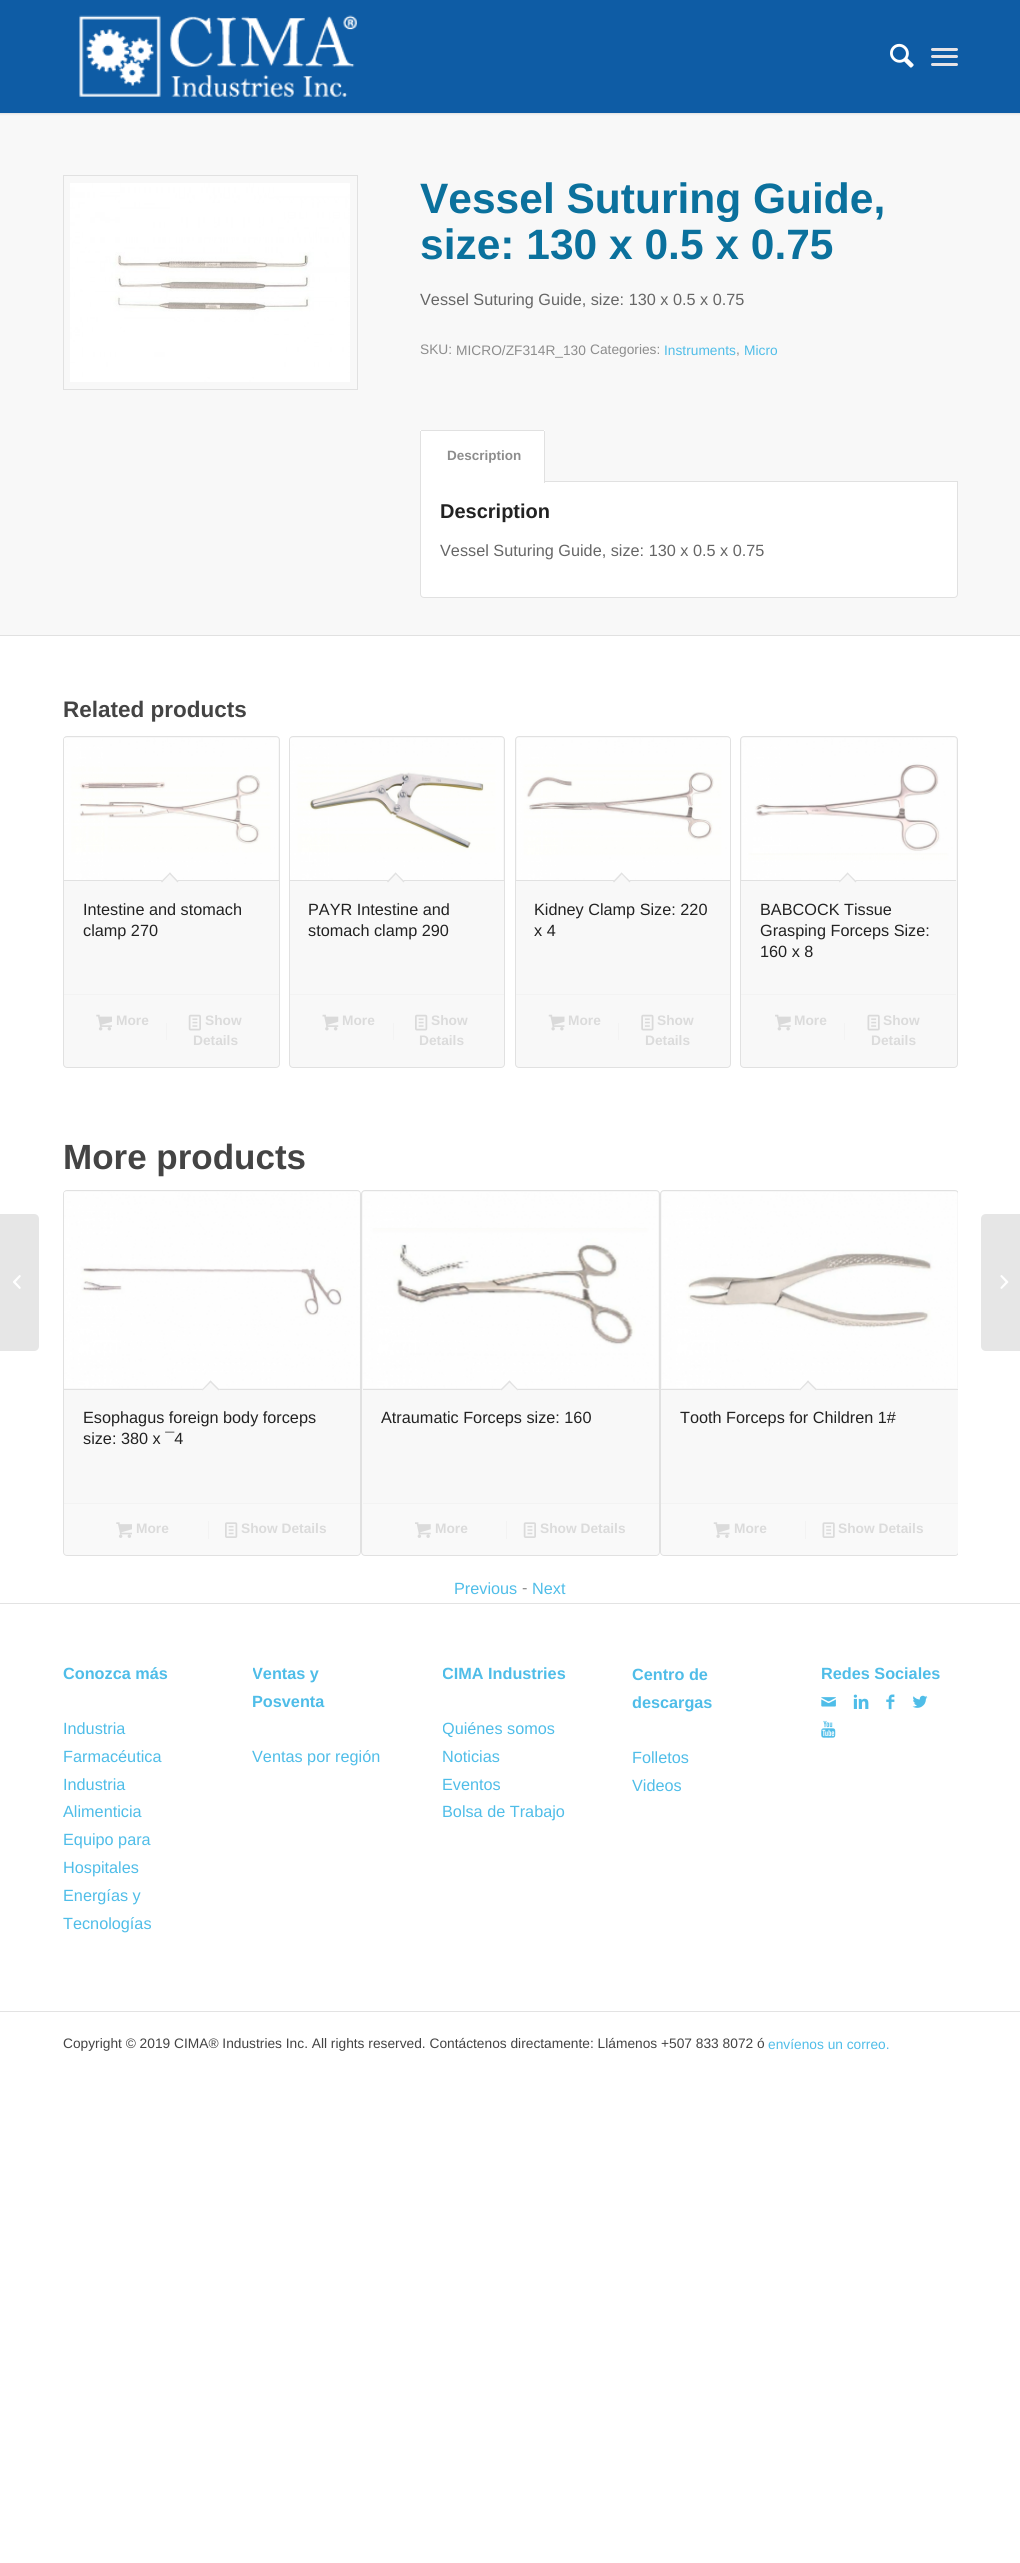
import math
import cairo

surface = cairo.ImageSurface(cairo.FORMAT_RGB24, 1020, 2563)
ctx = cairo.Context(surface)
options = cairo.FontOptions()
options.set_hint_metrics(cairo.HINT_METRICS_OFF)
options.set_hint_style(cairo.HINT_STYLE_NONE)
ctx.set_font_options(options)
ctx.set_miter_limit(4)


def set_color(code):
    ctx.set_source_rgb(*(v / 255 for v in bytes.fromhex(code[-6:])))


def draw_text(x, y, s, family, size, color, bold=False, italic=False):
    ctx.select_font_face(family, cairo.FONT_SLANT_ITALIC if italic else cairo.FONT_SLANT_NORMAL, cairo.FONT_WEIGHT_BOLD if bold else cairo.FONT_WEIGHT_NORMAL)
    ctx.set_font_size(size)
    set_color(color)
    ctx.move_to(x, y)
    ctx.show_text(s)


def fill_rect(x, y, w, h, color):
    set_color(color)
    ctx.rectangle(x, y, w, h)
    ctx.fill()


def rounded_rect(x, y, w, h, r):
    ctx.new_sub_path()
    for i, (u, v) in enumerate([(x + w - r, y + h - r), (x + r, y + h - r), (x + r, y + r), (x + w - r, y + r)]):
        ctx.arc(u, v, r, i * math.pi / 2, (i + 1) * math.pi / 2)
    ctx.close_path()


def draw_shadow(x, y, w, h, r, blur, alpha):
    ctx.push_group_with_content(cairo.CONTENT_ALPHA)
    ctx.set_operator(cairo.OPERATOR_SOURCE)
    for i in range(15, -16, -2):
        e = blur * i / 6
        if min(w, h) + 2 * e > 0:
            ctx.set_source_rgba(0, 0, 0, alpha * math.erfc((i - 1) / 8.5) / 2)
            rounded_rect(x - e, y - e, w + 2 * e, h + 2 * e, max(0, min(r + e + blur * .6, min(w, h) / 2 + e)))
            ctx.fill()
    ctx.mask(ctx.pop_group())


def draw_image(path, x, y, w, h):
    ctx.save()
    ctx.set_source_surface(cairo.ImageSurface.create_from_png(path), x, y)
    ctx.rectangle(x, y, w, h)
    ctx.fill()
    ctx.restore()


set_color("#ffffff")
ctx.paint()
fill_rect(0, 113, 1020, 522, "#f8f8f8")
set_color("#000000")
draw_shadow(-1, -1, 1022, 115, 0, 1, 0.1)
fill_rect(0, 0, 1020, 113, "#0e5ca5")
draw_image("assets/img1.png", 79, 15, 278, 82)
draw_image("assets/img2.png", 890, 43, 24, 25)
set_color("#e6e3e6")
rounded_rect(931, 55, 27, 3, 1.5)
ctx.fill()
rounded_rect(931, 48, 27, 3, 1.5)
ctx.fill()
rounded_rect(931, 63, 27, 3, 1.5)
ctx.fill()
set_color("#e6e6e6")
ctx.new_path()
ctx.move_to(0, 1214)
ctx.line_to(34, 1214)
ctx.curve_to(37, 1214, 39, 1216, 39, 1219)
ctx.line_to(39, 1346)
ctx.curve_to(39, 1349, 37, 1351, 34, 1351)
ctx.line_to(0, 1351)
ctx.close_path()
ctx.fill()
draw_image("assets/img3.png", 13, 1275, 8, 14)
ctx.rectangle(63.5, 175.5, 294, 214)
set_color("#e1e1e1")
ctx.set_line_width(1)
ctx.stroke()
draw_image("assets/img4.png", 70, 183, 280, 199)
draw_text(420, 213, "Vessel Suturing Guide,", "Liberation Sans", 42.5, "#0b719d", bold=True)
draw_text(420, 259, "size: 130 x 0.5 x 0.75", "Liberation Sans", 42.5, "#0b719d", bold=True)
draw_text(420, 305, "Vessel Suturing Guide, size: 130 x 0.5 x 0.75", "Liberation Sans", 16.25, "#666666")
draw_text(420, 354, "SKU:", "Liberation Sans", 13.75, "#8d8d8d")
draw_text(456, 355, "MICRO/ZF314R_130", "Liberation Sans", 13.75, "#8d8d8d")
draw_text(590, 354, "Categories:", "Liberation Sans", 13.75, "#8d8d8d")
draw_text(664, 355, "Instruments", "Liberation Sans", 13.75, "#4fbde8")
draw_text(736, 354, ",", "Liberation Sans", 13.75, "#8d8d8d")
draw_text(744, 355, "Micro", "Liberation Sans", 13.75, "#4fbde8")
set_color("#ffffff")
ctx.new_path()
ctx.move_to(420.5, 481.5)
ctx.line_to(957.5, 481.5)
ctx.line_to(957.5, 594)
ctx.curve_to(957.5, 596, 956, 597.5, 954, 597.5)
ctx.line_to(424, 597.5)
ctx.curve_to(422, 597.5, 420.5, 596, 420.5, 594)
ctx.close_path()
ctx.fill_preserve()
set_color("#e1e1e1")
ctx.stroke()
fill_rect(420, 430, 125, 53, "#ffffff")
fill_rect(421, 430, 123, 1, "#e1e1e1")
fill_rect(544, 431, 1, 52, "#e1e1e1")
fill_rect(420, 431, 1, 52, "#e1e1e1")
draw_text(447, 460, "Description", "Liberation Sans", 13.5, "#8d8d8d", bold=True)
draw_text(440, 518, "Description", "Liberation Sans", 20, "#222222", bold=True)
draw_text(440, 556, "Vessel Suturing Guide, size: 130 x 0.5 x 0.75", "Liberation Sans", 16.25, "#666666")
fill_rect(0, 635, 1020, 1, "#e1e1e1")
draw_text(63, 717, "Related products", "Liberation Sans", 22.5, "#444444", bold=True)
set_color("#f8f8f8")
rounded_rect(63.5, 736.5, 216, 331, 3.5)
ctx.fill_preserve()
set_color("#e1e1e1")
ctx.stroke()
draw_image("assets/img5.png", 64, 738, 214, 142)
fill_rect(64, 880, 215, 1, "#e1e1e1")
set_color("#f8f8f8")
ctx.new_path()
ctx.move_to(170, 872.5)
ctx.line_to(178.5, 881.5)
ctx.line_to(170, 890)
ctx.line_to(161, 881.5)
ctx.close_path()
ctx.fill()
set_color("#e1e1e1")
ctx.new_path()
ctx.move_to(170, 872.5)
ctx.line_to(178.5, 881.5)
ctx.line_to(177.5, 882.5)
ctx.line_to(169, 873.5)
ctx.close_path()
ctx.fill()
ctx.new_path()
ctx.move_to(170, 872.5)
ctx.line_to(170.5, 873.5)
ctx.line_to(162, 882.5)
ctx.line_to(161, 881.5)
ctx.close_path()
ctx.fill()
draw_text(83, 915, "Intestine and stomach", "Liberation Sans", 16.25, "#222222")
draw_text(83, 936, "clamp 270", "Liberation Sans", 16.25, "#222222")
fill_rect(64, 994, 215, 1, "#f3f3f3")
draw_image("assets/img6.png", 96, 1014, 16, 17)
draw_text(116, 1025, "More", "Liberation Sans", 13.75, "#dbdbdb", bold=True)
fill_rect(166, 1023, 1, 17, "#f3f3f3")
draw_image("assets/img7.png", 188, 1014, 13, 17)
draw_text(205, 1025, "Show", "Liberation Sans", 13.75, "#dbdbdb", bold=True)
draw_text(193, 1045, "Details", "Liberation Sans", 13.75, "#dbdbdb", bold=True)
set_color("#f8f8f8")
rounded_rect(289.5, 736.5, 215, 331, 3.5)
ctx.fill_preserve()
set_color("#e1e1e1")
ctx.stroke()
draw_image("assets/img8.png", 290, 738, 213, 142)
fill_rect(290, 880, 214, 1, "#e1e1e1")
set_color("#f8f8f8")
ctx.new_path()
ctx.move_to(395.5, 872.5)
ctx.line_to(404.5, 881.5)
ctx.line_to(395.5, 890)
ctx.line_to(387, 881.5)
ctx.close_path()
ctx.fill()
set_color("#e1e1e1")
ctx.new_path()
ctx.move_to(395.5, 872.5)
ctx.line_to(404.5, 881.5)
ctx.line_to(403.5, 882.5)
ctx.line_to(395, 873.5)
ctx.close_path()
ctx.fill()
ctx.new_path()
ctx.move_to(395.5, 872.5)
ctx.line_to(396.5, 873.5)
ctx.line_to(388, 882.5)
ctx.line_to(387, 881.5)
ctx.close_path()
ctx.fill()
draw_text(308, 915, "PAYR Intestine and", "Liberation Sans", 16.25, "#222222")
draw_text(308, 936, "stomach clamp 290", "Liberation Sans", 16.25, "#222222")
fill_rect(290, 994, 214, 1, "#f3f3f3")
draw_image("assets/img9.png", 322, 1014, 17, 17)
draw_text(342, 1025, "More", "Liberation Sans", 13.75, "#dbdbdb", bold=True)
fill_rect(393, 1023, 1, 17, "#f3f3f3")
draw_image("assets/img10.png", 415, 1014, 13, 17)
draw_text(431, 1025, "Show", "Liberation Sans", 13.75, "#dbdbdb", bold=True)
draw_text(419, 1045, "Details", "Liberation Sans", 13.75, "#dbdbdb", bold=True)
set_color("#f8f8f8")
rounded_rect(515.5, 736.5, 215, 331, 3.5)
ctx.fill_preserve()
set_color("#e1e1e1")
ctx.stroke()
draw_image("assets/img11.png", 517, 738, 213, 142)
fill_rect(516, 880, 214, 1, "#e1e1e1")
set_color("#f8f8f8")
ctx.new_path()
ctx.move_to(621.5, 872.5)
ctx.line_to(630.5, 881.5)
ctx.line_to(621.5, 890)
ctx.line_to(613, 881.5)
ctx.close_path()
ctx.fill()
set_color("#e1e1e1")
ctx.new_path()
ctx.move_to(621.5, 872.5)
ctx.line_to(630.5, 881.5)
ctx.line_to(629.5, 882.5)
ctx.line_to(621, 873.5)
ctx.close_path()
ctx.fill()
ctx.new_path()
ctx.move_to(621.5, 872.5)
ctx.line_to(622.5, 873.5)
ctx.line_to(614, 882.5)
ctx.line_to(613, 881.5)
ctx.close_path()
ctx.fill()
draw_text(534, 915, "Kidney Clamp Size: 220", "Liberation Sans", 16.25, "#222222")
draw_text(534, 936, "x 4", "Liberation Sans", 16.25, "#222222")
fill_rect(516, 994, 214, 1, "#f3f3f3")
draw_image("assets/img12.png", 548, 1014, 17, 17)
draw_text(568, 1025, "More", "Liberation Sans", 13.75, "#dbdbdb", bold=True)
fill_rect(618, 1023, 1, 17, "#f3f3f3")
draw_image("assets/img13.png", 641, 1014, 13, 17)
draw_text(657, 1025, "Show", "Liberation Sans", 13.75, "#dbdbdb", bold=True)
draw_text(645, 1045, "Details", "Liberation Sans", 13.75, "#dbdbdb", bold=True)
set_color("#f8f8f8")
rounded_rect(740.5, 736.5, 217, 331, 3.5)
ctx.fill_preserve()
set_color("#e1e1e1")
ctx.stroke()
draw_image("assets/img14.png", 742, 738, 214, 142)
fill_rect(741, 880, 215, 1, "#e1e1e1")
set_color("#f8f8f8")
ctx.new_path()
ctx.move_to(847.5, 872.5)
ctx.line_to(856.5, 881.5)
ctx.line_to(847.5, 890)
ctx.line_to(839, 881.5)
ctx.close_path()
ctx.fill()
set_color("#e1e1e1")
ctx.new_path()
ctx.move_to(847.5, 872.5)
ctx.line_to(856.5, 881.5)
ctx.line_to(855.5, 882.5)
ctx.line_to(847, 873.5)
ctx.close_path()
ctx.fill()
ctx.new_path()
ctx.move_to(847.5, 872.5)
ctx.line_to(848.5, 873.5)
ctx.line_to(839.5, 882.5)
ctx.line_to(839, 881.5)
ctx.close_path()
ctx.fill()
draw_text(760, 915, "BABCOCK Tissue", "Liberation Sans", 16.25, "#222222")
draw_text(760, 936, "Grasping Forceps Size:", "Liberation Sans", 16.25, "#222222")
draw_text(760, 957, "160 x 8", "Liberation Sans", 16.25, "#222222")
fill_rect(741, 994, 215, 1, "#f3f3f3")
draw_image("assets/img15.png", 775, 1014, 16, 17)
draw_text(794, 1025, "More", "Liberation Sans", 13.75, "#dbdbdb", bold=True)
fill_rect(844, 1023, 1, 17, "#f3f3f3")
draw_image("assets/img16.png", 867, 1014, 13, 17)
draw_text(883, 1025, "Show", "Liberation Sans", 13.75, "#dbdbdb", bold=True)
draw_text(871, 1045, "Details", "Liberation Sans", 13.75, "#dbdbdb", bold=True)
draw_text(63, 1169, "More products", "Liberation Sans", 35, "#444444", bold=True)
set_color("#f8f8f8")
rounded_rect(63.5, 1190.5, 297, 365, 3.5)
ctx.fill_preserve()
set_color("#e1e1e1")
ctx.stroke()
draw_image("assets/img17.png", 64, 1191, 296, 197)
fill_rect(64, 1389, 296, 1, "#e1e1e1")
set_color("#f8f8f8")
ctx.new_path()
ctx.move_to(210.5, 1380.5)
ctx.line_to(219.5, 1389.5)
ctx.line_to(210.5, 1398.5)
ctx.line_to(202, 1389.5)
ctx.close_path()
ctx.fill()
set_color("#e1e1e1")
ctx.new_path()
ctx.move_to(210.5, 1380.5)
ctx.line_to(219.5, 1389.5)
ctx.line_to(218.5, 1390.5)
ctx.line_to(209.5, 1381.5)
ctx.close_path()
ctx.fill()
ctx.new_path()
ctx.move_to(210.5, 1380.5)
ctx.line_to(211.5, 1381.5)
ctx.line_to(202.5, 1390.5)
ctx.line_to(202, 1389.5)
ctx.close_path()
ctx.fill()
draw_text(83, 1423, "Esophagus foreign body forceps", "Liberation Sans", 16.25, "#222222")
draw_text(83, 1444, "size: 380 x ¯4", "Liberation Sans", 16.25, "#222222")
ctx.set_source_rgba(1, 1, 1, 0.2)
ctx.new_path()
ctx.move_to(64, 1503)
ctx.line_to(360, 1503)
ctx.line_to(360, 1552.5)
ctx.curve_to(360, 1554, 359, 1555, 357.5, 1555)
ctx.line_to(66.5, 1555)
ctx.curve_to(65, 1555, 64, 1554, 64, 1552.5)
ctx.close_path()
ctx.fill()
fill_rect(64, 1503, 296, 1, "#f3f3f3")
draw_image("assets/img18.png", 116, 1522, 16, 16)
draw_text(136, 1533, "More", "Liberation Sans", 13.75, "#dbdbdb", bold=True)
fill_rect(208, 1521, 1, 18, "#f3f3f3")
draw_image("assets/img19.png", 225, 1522, 13, 16)
draw_text(241, 1533, "Show Details", "Liberation Sans", 13.75, "#dbdbdb", bold=True)
set_color("#f8f8f8")
rounded_rect(361.5, 1190.5, 298, 365, 3.5)
ctx.fill_preserve()
set_color("#e1e1e1")
ctx.stroke()
draw_image("assets/img20.png", 363, 1192, 295, 196)
fill_rect(363, 1389, 296, 1, "#e1e1e1")
set_color("#f8f8f8")
ctx.new_path()
ctx.move_to(509.5, 1380.5)
ctx.line_to(518, 1389.5)
ctx.line_to(509.5, 1398.5)
ctx.line_to(500.5, 1389.5)
ctx.close_path()
ctx.fill()
set_color("#e1e1e1")
ctx.new_path()
ctx.move_to(509.5, 1380.5)
ctx.line_to(518, 1389.5)
ctx.line_to(517.5, 1390.5)
ctx.line_to(508.5, 1381.5)
ctx.close_path()
ctx.fill()
ctx.new_path()
ctx.move_to(509.5, 1380.5)
ctx.line_to(510.5, 1381.5)
ctx.line_to(501.5, 1390.5)
ctx.line_to(500.5, 1389.5)
ctx.close_path()
ctx.fill()
draw_text(381, 1423, "Atraumatic Forceps size: 160", "Liberation Sans", 16.25, "#222222")
ctx.set_source_rgba(1, 1, 1, 0.2)
ctx.new_path()
ctx.move_to(363, 1503)
ctx.line_to(659, 1503)
ctx.line_to(659, 1552.5)
ctx.curve_to(659, 1554, 658, 1555, 656.5, 1555)
ctx.line_to(365.5, 1555)
ctx.curve_to(364, 1555, 363, 1554, 363, 1552.5)
ctx.close_path()
ctx.fill()
fill_rect(363, 1503, 296, 1, "#f3f3f3")
draw_image("assets/img21.png", 415, 1522, 16, 16)
draw_text(435, 1533, "More", "Liberation Sans", 13.75, "#dbdbdb", bold=True)
fill_rect(506, 1521, 1, 18, "#f3f3f3")
draw_image("assets/img22.png", 523, 1522, 13, 16)
draw_text(540, 1533, "Show Details", "Liberation Sans", 13.75, "#dbdbdb", bold=True)
ctx.save()
ctx.rectangle(63, 1190, 895, 366)
ctx.clip()
set_color("#f8f8f8")
rounded_rect(660.5, 1190.5, 298, 365, 3.5)
ctx.fill_preserve()
set_color("#e1e1e1")
ctx.stroke()
ctx.restore()
draw_image("assets/img23.png", 662, 1192, 295, 196)
fill_rect(661, 1389, 297, 1, "#e1e1e1")
set_color("#f8f8f8")
ctx.new_path()
ctx.move_to(808, 1380.5)
ctx.line_to(817, 1389.5)
ctx.line_to(808, 1398.5)
ctx.line_to(799.5, 1389.5)
ctx.close_path()
ctx.fill()
set_color("#e1e1e1")
ctx.new_path()
ctx.move_to(808, 1380.5)
ctx.line_to(817, 1389.5)
ctx.line_to(816, 1390.5)
ctx.line_to(807, 1381.5)
ctx.close_path()
ctx.fill()
ctx.new_path()
ctx.move_to(808, 1380.5)
ctx.line_to(809, 1381.5)
ctx.line_to(800, 1390.5)
ctx.line_to(799.5, 1389.5)
ctx.close_path()
ctx.fill()
draw_text(680, 1423, "Tooth Forceps for Children 1#", "Liberation Sans", 16.25, "#222222")
ctx.set_source_rgba(1, 1, 1, 0.2)
ctx.new_path()
ctx.move_to(661, 1503)
ctx.line_to(958, 1503)
ctx.line_to(958, 1552.5)
ctx.curve_to(958, 1554, 957, 1555, 955.5, 1555)
ctx.line_to(663.5, 1555)
ctx.curve_to(662, 1555, 661, 1554, 661, 1552.5)
ctx.close_path()
ctx.fill()
fill_rect(661, 1503, 297, 1, "#f3f3f3")
draw_image("assets/img24.png", 713, 1522, 17, 16)
draw_text(734, 1533, "More", "Liberation Sans", 13.75, "#dbdbdb", bold=True)
fill_rect(805, 1521, 1, 18, "#f3f3f3")
draw_image("assets/img25.png", 822, 1522, 13, 16)
draw_text(838, 1533, "Show Details", "Liberation Sans", 13.75, "#dbdbdb", bold=True)
draw_text(454, 1594, "Previous", "Liberation Sans", 16.25, "#4fbde8")
draw_text(522, 1593, "-", "Liberation Sans", 16.25, "#8d8d8d")
draw_text(532, 1594, "Next", "Liberation Sans", 16.25, "#4fbde8")
fill_rect(0, 1603, 1020, 1, "#e3e3e3")
draw_text(63, 1679, "Conozca más", "Liberation Sans", 16.25, "#4fbde8", bold=True)
draw_text(63, 1734, "Industria", "Liberation Sans", 16.25, "#4fbde8")
draw_text(63, 1762, "Farmacéutica", "Liberation Sans", 16.25, "#4fbde8")
draw_text(63, 1790, "Industria", "Liberation Sans", 16.25, "#4fbde8")
draw_text(63, 1817, "Alimenticia", "Liberation Sans", 16.25, "#4fbde8")
draw_text(63, 1845, "Equipo para", "Liberation Sans", 16.25, "#4fbde8")
draw_text(63, 1873, "Hospitales", "Liberation Sans", 16.25, "#4fbde8")
draw_text(63, 1901, "Energías y", "Liberation Sans", 16.25, "#4fbde8")
draw_text(63, 1929, "Tecnologías", "Liberation Sans", 16.25, "#4fbde8")
ctx.save()
ctx.rectangle(253, 1660, 136, 110)
ctx.clip()
draw_text(252, 1679, "Ventas y", "Liberation Sans", 16.25, "#4fbde8", bold=True)
ctx.restore()
draw_text(252, 1707, "Posventa", "Liberation Sans", 16.25, "#4fbde8", bold=True)
draw_text(252, 1762, "Ventas por región", "Liberation Sans", 16.25, "#4fbde8")
ctx.save()
ctx.rectangle(443, 1660, 135, 165)
ctx.clip()
draw_text(442, 1679, "CIMA Industries", "Liberation Sans", 16.25, "#4fbde8", bold=True)
draw_text(442, 1734, "Quiénes somos", "Liberation Sans", 16.25, "#4fbde8")
ctx.restore()
draw_text(442, 1762, "Noticias", "Liberation Sans", 16.25, "#4fbde8")
draw_text(442, 1790, "Eventos", "Liberation Sans", 16.25, "#4fbde8")
draw_text(442, 1817, "Bolsa de Trabajo", "Liberation Sans", 16.25, "#4fbde8")
draw_text(632, 1680, "Centro de", "Liberation Sans", 16.25, "#4fbde8", bold=True)
draw_text(632, 1708, "descargas", "Liberation Sans", 16.25, "#4fbde8", bold=True)
draw_text(632, 1763, "Folletos", "Liberation Sans", 16.25, "#4fbde8")
draw_text(632, 1791, "Videos", "Liberation Sans", 16.25, "#4fbde8")
draw_text(821, 1679, "Redes Sociales", "Liberation Sans", 16.25, "#4fbde8", bold=True)
draw_image("assets/img26.png", 821, 1697, 15, 10)
draw_image("assets/img27.png", 853, 1694, 16, 15)
draw_image("assets/img28.png", 886, 1694, 9, 16)
draw_image("assets/img29.png", 912, 1695, 16, 13)
draw_image("assets/img30.png", 821, 1720, 15, 18)
fill_rect(0, 2011, 1020, 1, "#e3e3e3")
draw_text(63, 2048, "Copyright © 2019 CIMA® Industries Inc. All rights reserved. Contáctenos directamente: Llámenos +507 833 8072 ó", "Liberation Sans", 13.75, "#444444")
draw_text(768, 2049, "envíenos un correo.", "Liberation Sans", 13.75, "#4fbde8")
set_color("#e6e6e6")
ctx.new_path()
ctx.move_to(986, 1214)
ctx.line_to(1020, 1214)
ctx.line_to(1020, 1351)
ctx.line_to(986, 1351)
ctx.curve_to(983, 1351, 981, 1349, 981, 1346)
ctx.line_to(981, 1219)
ctx.curve_to(981, 1216, 983, 1214, 986, 1214)
ctx.close_path()
ctx.fill()
draw_image("assets/img31.png", 1000, 1275, 9, 14)
surface.write_to_png("output.png")
